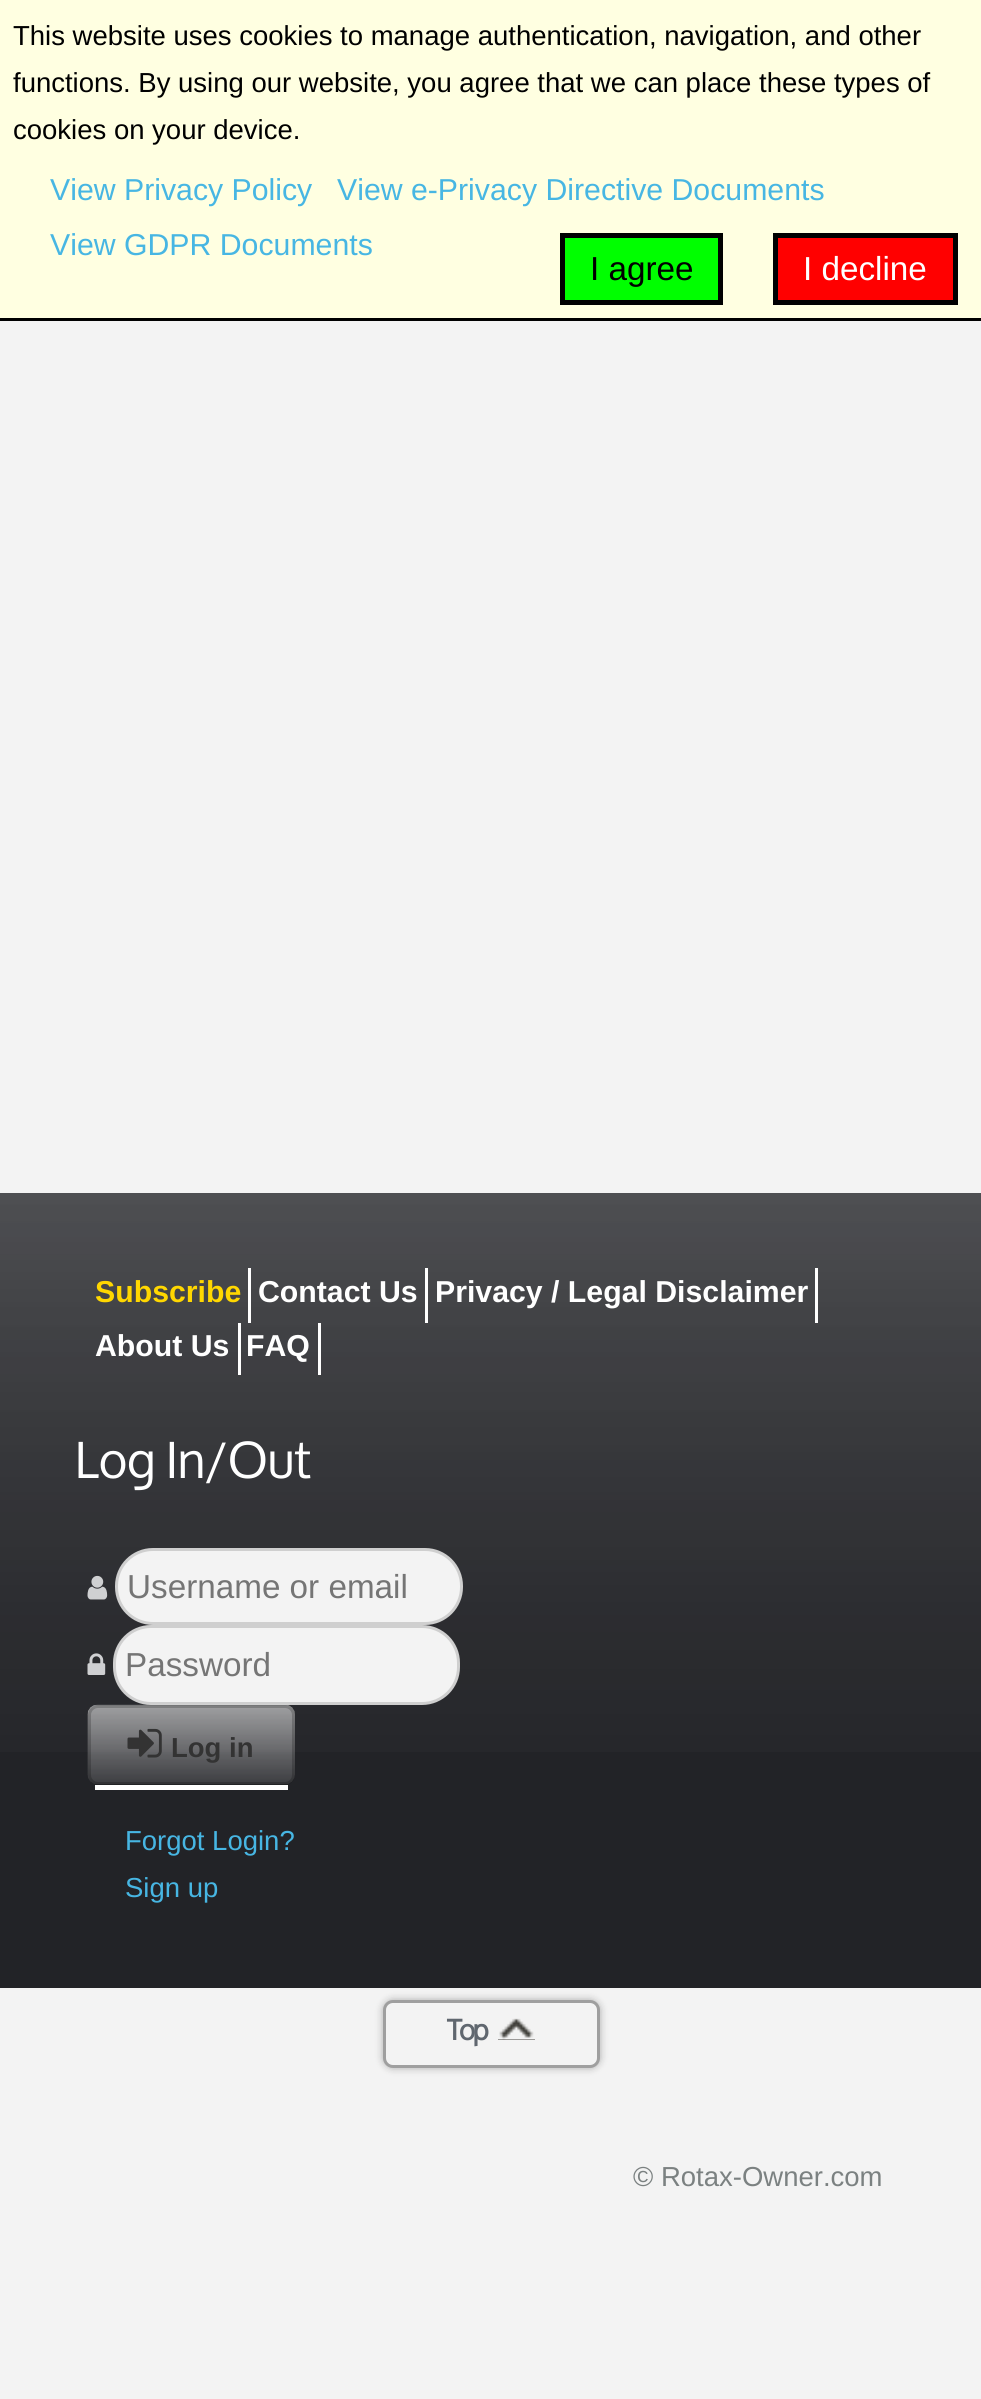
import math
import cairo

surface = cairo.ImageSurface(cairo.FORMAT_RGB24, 981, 2399)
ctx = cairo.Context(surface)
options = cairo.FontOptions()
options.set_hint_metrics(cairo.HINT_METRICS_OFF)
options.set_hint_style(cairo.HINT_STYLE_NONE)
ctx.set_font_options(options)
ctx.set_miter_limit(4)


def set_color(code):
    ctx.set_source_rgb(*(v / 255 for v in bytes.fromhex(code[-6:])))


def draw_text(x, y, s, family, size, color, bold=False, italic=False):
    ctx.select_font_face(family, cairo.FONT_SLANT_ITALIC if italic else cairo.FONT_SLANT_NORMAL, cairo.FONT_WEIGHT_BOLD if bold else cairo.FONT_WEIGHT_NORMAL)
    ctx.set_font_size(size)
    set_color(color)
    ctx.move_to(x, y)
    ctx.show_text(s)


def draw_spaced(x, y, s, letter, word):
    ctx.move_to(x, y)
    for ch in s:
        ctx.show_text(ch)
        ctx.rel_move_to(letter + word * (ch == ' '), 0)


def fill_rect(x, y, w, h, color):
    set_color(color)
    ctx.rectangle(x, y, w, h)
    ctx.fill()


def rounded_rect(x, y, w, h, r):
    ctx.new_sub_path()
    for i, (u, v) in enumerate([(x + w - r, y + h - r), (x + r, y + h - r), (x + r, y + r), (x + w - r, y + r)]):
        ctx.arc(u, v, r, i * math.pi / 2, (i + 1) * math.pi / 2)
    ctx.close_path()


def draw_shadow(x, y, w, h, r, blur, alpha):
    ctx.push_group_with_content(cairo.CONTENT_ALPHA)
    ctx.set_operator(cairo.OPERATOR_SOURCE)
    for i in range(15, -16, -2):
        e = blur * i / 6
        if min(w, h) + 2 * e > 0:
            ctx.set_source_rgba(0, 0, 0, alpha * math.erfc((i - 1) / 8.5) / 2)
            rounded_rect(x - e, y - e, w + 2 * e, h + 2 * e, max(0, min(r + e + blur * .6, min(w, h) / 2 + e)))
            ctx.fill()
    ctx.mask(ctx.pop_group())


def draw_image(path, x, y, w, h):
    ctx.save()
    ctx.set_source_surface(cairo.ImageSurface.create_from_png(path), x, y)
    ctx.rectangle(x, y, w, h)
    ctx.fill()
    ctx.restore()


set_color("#f3f3f3")
ctx.paint()
fill_rect(0, 0, 981, 318, "#ffffe1")
fill_rect(0, 318, 981, 3, "#000000")
draw_text(13, 45, "This website uses cookies to manage authentication, navigation, and other", "Liberation Sans", 27.5, "#000000")
draw_text(13, 92, "functions. By using our website, you agree that we can place these types of", "Liberation Sans", 27.5, "#000000")
draw_text(13, 139, "cookies on your device.", "Liberation Sans", 27.5, "#000000")
draw_text(50, 200, "View Privacy Policy", "Liberation Sans", 30.25, "#47b6e3")
draw_text(337, 200, "View e-Privacy Directive Documents", "Liberation Sans", 30.25, "#47b6e3")
draw_text(50, 255, "View GDPR Documents", "Liberation Sans", 30.25, "#47b6e3")
set_color("#00ff00")
ctx.rectangle(562.5, 235.5, 158, 67)
ctx.fill_preserve()
set_color("#000000")
ctx.set_line_width(5)
ctx.stroke()
draw_text(590, 280, "I agree", "Liberation Sans", 33.25, "#000000")
set_color("#ff0000")
ctx.rectangle(775.5, 235.5, 180, 67)
ctx.fill_preserve()
set_color("#000000")
ctx.stroke()
draw_text(803, 280, "I decline", "Liberation Sans", 33.25, "#ffffff")
fill_rect(0, 1193, 981, 795, "#222327")
draw_image("assets/img1.png", 0, 1193, 981, 559)
fill_rect(248, 1268, 3, 55, "#ffffff")
draw_text(95, 1302, "Subscribe", "Liberation Sans", 30.25, "#ffd700", bold=True)
fill_rect(425, 1268, 3, 55, "#ffffff")
draw_text(258, 1302, "Contact Us", "Liberation Sans", 30.25, "#ffffff", bold=True)
fill_rect(815, 1268, 3, 55, "#ffffff")
draw_text(435, 1302, "Privacy / Legal Disclaimer", "Liberation Sans", 30.25, "#ffffff", bold=True)
fill_rect(238, 1323, 3, 52, "#ffffff")
draw_text(95, 1356, "About Us", "Liberation Sans", 30.25, "#ffffff", bold=True)
fill_rect(318, 1323, 3, 52, "#ffffff")
draw_text(246, 1356, "FAQ", "Liberation Sans", 30.25, "#ffffff", bold=True)
draw_text(75, 1478, "Log In/Out", "Oxygen", 49.5, "#ffffff")
draw_image("assets/img2.png", 87, 1575, 21, 25)
set_color("#f3f3f3")
rounded_rect(116.5, 1549.5, 345, 74, 36.5)
ctx.fill_preserve()
set_color("#cfcfcf")
ctx.set_line_width(3)
ctx.stroke()
draw_text(127, 1598, "Username or email", "Liberation Sans", 33.25, "#757575")
draw_image("assets/img3.png", 87, 1653, 19, 22)
set_color("#f3f3f3")
rounded_rect(114.5, 1626.5, 344, 77, 36.5)
ctx.fill_preserve()
set_color("#cfcfcf")
ctx.stroke()
draw_text(125, 1676, "Password", "Liberation Sans", 33.25, "#757575")
draw_image("assets/img4.png", 87, 1704, 208, 81)
rounded_rect(89.5, 1706.5, 204, 77, 8.5)
ctx.set_source_rgba(0, 0, 0, 0.2)
ctx.stroke()
draw_image("assets/img5.png", 127, 1728, 35, 30)
draw_text(171, 1757, "Log in", "Liberation Sans", 27.5, "#333333", bold=True)
fill_rect(95, 1785, 193, 5, "#ffffff")
draw_text(125, 1850, "Forgot Login?", "Liberation Sans", 27.5, "#47b6e3")
draw_text(125, 1897, "Sign up", "Liberation Sans", 27.5, "#47b6e3")
set_color("#000000")
draw_shadow(383, 2000, 217, 68, 10, 4, 0.3)
set_color("#f3f3f3")
rounded_rect(384.5, 2001.5, 214, 65, 8.5)
ctx.fill_preserve()
set_color("#9f9f9f")
ctx.stroke()
ctx.select_font_face("Oxygen", cairo.FONT_SLANT_NORMAL, cairo.FONT_WEIGHT_BOLD)
ctx.set_font_size(28)
set_color("#60676f")
draw_spaced(447, 2040, "Top", -2.5, 0)
fill_rect(498, 2018, 37, 22, "#42413c")
draw_image("assets/img6.png", 498, 2015, 37, 25)
draw_text(633, 2186, "© Rotax-Owner.com", "Liberation Sans", 27.5, "#7b8181")
surface.write_to_png("output.png")
